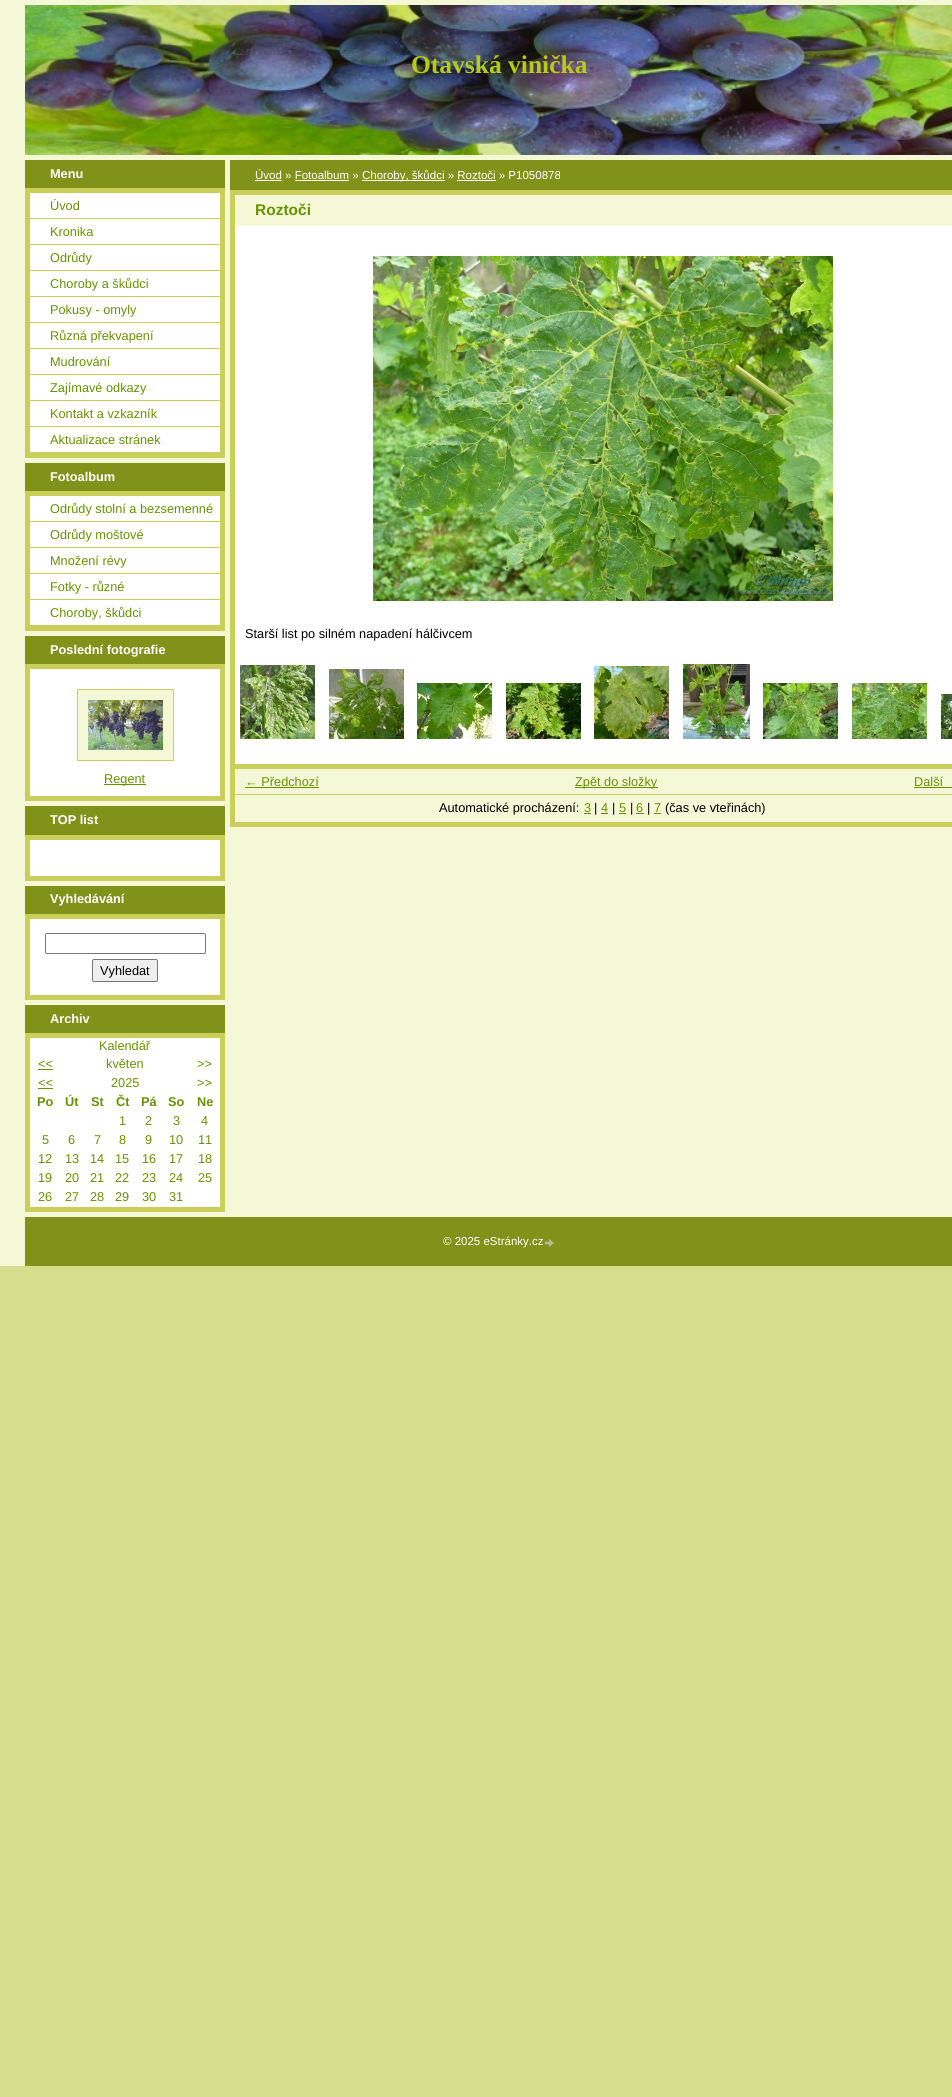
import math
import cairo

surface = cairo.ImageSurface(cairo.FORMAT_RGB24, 952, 2097)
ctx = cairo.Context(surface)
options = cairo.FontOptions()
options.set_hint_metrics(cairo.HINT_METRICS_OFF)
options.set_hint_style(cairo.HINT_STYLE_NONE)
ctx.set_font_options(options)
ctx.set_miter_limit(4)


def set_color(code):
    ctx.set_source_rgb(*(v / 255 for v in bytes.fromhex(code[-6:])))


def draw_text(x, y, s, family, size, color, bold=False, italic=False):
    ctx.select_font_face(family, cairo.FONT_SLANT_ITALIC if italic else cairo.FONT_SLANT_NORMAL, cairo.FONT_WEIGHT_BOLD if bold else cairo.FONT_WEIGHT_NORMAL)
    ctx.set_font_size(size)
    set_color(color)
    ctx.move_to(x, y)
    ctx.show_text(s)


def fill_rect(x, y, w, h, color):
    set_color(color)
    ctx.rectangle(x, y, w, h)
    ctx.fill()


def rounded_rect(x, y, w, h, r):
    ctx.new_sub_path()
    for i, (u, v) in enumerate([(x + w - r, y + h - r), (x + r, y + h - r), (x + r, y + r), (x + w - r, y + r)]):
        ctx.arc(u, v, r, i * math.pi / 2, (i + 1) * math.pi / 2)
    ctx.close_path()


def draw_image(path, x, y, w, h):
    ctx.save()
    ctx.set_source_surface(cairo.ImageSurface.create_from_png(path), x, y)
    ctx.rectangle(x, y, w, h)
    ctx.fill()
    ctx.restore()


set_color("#d8dd8d")
ctx.paint()
fill_rect(0, 0, 952, 1266, "#f5f8d7")
draw_image("assets/img1.png", 25, 5, 927, 150)
draw_text(411, 73, "Otavská vinička", "Liberation Serif", 25.5, "#b5cb16", bold=True)
fill_rect(25, 160, 200, 28, "#809219")
draw_text(50, 178, "Menu", "Liberation Sans", 12.75, "#ffffff", bold=True)
fill_rect(30, 193, 190, 259, "#ffffff")
ctx.rectangle(27.5, 190.5, 195, 265)
set_color("#cacf59")
ctx.set_line_width(5)
ctx.stroke()
fill_rect(30, 218, 190, 1, "#cacf59")
draw_text(50, 210, "Úvod", "Liberation Sans", 12.75, "#689101")
fill_rect(30, 244, 190, 1, "#cacf59")
draw_text(50, 236, "Kronika", "Liberation Sans", 12.75, "#689101")
fill_rect(30, 270, 190, 1, "#cacf59")
draw_text(50, 262, "Odrůdy", "Liberation Sans", 12.75, "#689101")
fill_rect(30, 296, 190, 1, "#cacf59")
draw_text(50, 288, "Choroby a škůdci", "Liberation Sans", 12.75, "#689101")
fill_rect(30, 322, 190, 1, "#cacf59")
draw_text(50, 314, "Pokusy - omyly", "Liberation Sans", 12.75, "#689101")
fill_rect(30, 348, 190, 1, "#cacf59")
draw_text(50, 340, "Různá překvapení", "Liberation Sans", 12.75, "#689101")
fill_rect(30, 374, 190, 1, "#cacf59")
draw_text(50, 366, "Mudrování", "Liberation Sans", 12.75, "#689101")
fill_rect(30, 400, 190, 1, "#cacf59")
draw_text(50, 392, "Zajímavé odkazy", "Liberation Sans", 12.75, "#689101")
fill_rect(30, 426, 190, 1, "#cacf59")
draw_text(50, 418, "Kontakt a vzkazník", "Liberation Sans", 12.75, "#689101")
fill_rect(30, 452, 190, 1, "#cacf59")
draw_text(50, 444, "Aktualizace stránek", "Liberation Sans", 12.75, "#689101")
fill_rect(25, 463, 200, 28, "#809219")
draw_text(50, 481, "Fotoalbum", "Liberation Sans", 12.75, "#ffffff", bold=True)
fill_rect(30, 496, 190, 129, "#ffffff")
ctx.rectangle(27.5, 493.5, 195, 135)
set_color("#cacf59")
ctx.stroke()
fill_rect(30, 521, 190, 1, "#cacf59")
draw_text(50, 513, "Odrůdy stolní a bezsemenné", "Liberation Sans", 12.75, "#689101")
fill_rect(30, 547, 190, 1, "#cacf59")
draw_text(50, 539, "Odrůdy moštové", "Liberation Sans", 12.75, "#689101")
fill_rect(30, 573, 190, 1, "#cacf59")
draw_text(50, 565, "Množení révy", "Liberation Sans", 12.75, "#689101")
fill_rect(30, 599, 190, 1, "#cacf59")
draw_text(50, 591, "Fotky - různé", "Liberation Sans", 12.75, "#689101")
fill_rect(30, 625, 190, 1, "#cacf59")
draw_text(50, 617, "Choroby, škůdci", "Liberation Sans", 12.75, "#689101")
fill_rect(25, 636, 200, 28, "#809219")
draw_text(50, 654, "Poslední fotografie", "Liberation Sans", 12.75, "#ffffff", bold=True)
ctx.rectangle(27.5, 666.5, 195, 132)
ctx.fill_preserve()
set_color("#cacf59")
ctx.stroke()
set_color("#f5f8d7")
ctx.rectangle(77.5, 689.5, 96, 71)
ctx.fill_preserve()
set_color("#cacf59")
ctx.set_line_width(1)
ctx.stroke()
draw_image("assets/img2.png", 88, 700, 75, 50)
fill_rect(104, 784, 42, 1, "#689101")
draw_text(104, 783, "Regent", "Liberation Sans", 12.75, "#689101")
fill_rect(25, 806, 200, 29, "#809219")
draw_text(50, 824, "TOP list", "Liberation Sans", 12.75, "#ffffff", bold=True)
ctx.rectangle(27.5, 837.5, 195, 41)
ctx.fill_preserve()
set_color("#cacf59")
ctx.set_line_width(5)
ctx.stroke()
fill_rect(25, 886, 200, 28, "#809219")
draw_text(50, 903, "Vyhledávání", "Liberation Sans", 12.75, "#ffffff", bold=True)
ctx.rectangle(27.5, 916.5, 195, 81)
ctx.fill_preserve()
set_color("#cacf59")
ctx.stroke()
rounded_rect(45.5, 933.5, 160, 20, 1.5)
set_color("#767676")
ctx.set_line_width(1)
ctx.stroke()
set_color("#efefef")
rounded_rect(92.5, 959.5, 65, 22, 1.5)
ctx.fill_preserve()
set_color("#767676")
ctx.stroke()
draw_text(100, 975, "Vyhledat", "Liberation Sans", 12.75, "#000000")
fill_rect(25, 1005, 200, 28, "#809219")
draw_text(50, 1023, "Archiv", "Liberation Sans", 12.75, "#ffffff", bold=True)
ctx.rectangle(27.5, 1035.5, 195, 174)
ctx.fill_preserve()
set_color("#cacf59")
ctx.set_line_width(5)
ctx.stroke()
draw_text(99, 1050, "Kalendář", "Liberation Sans", 12.75, "#689101")
draw_text(38, 1068, "<<", "Liberation Sans", 12.75, "#689101")
fill_rect(38, 1069, 15, 1, "#689101")
draw_text(106, 1068, "květen", "Liberation Sans", 12.75, "#689101")
draw_text(197, 1068, ">>", "Liberation Sans", 12.75, "#689101")
draw_text(38, 1087, "<<", "Liberation Sans", 12.75, "#689101")
fill_rect(38, 1088, 15, 1, "#689101")
draw_text(111, 1087, "2025", "Liberation Sans", 12.75, "#689101")
draw_text(197, 1087, ">>", "Liberation Sans", 12.75, "#689101")
draw_text(37, 1106, "Po", "Liberation Sans", 12.75, "#689101", bold=True)
draw_text(65, 1106, "Út", "Liberation Sans", 12.75, "#689101", bold=True)
draw_text(91, 1106, "St", "Liberation Sans", 12.75, "#689101", bold=True)
draw_text(116, 1106, "Čt", "Liberation Sans", 12.75, "#689101", bold=True)
draw_text(141, 1106, "Pá", "Liberation Sans", 12.75, "#689101", bold=True)
draw_text(168, 1106, "So", "Liberation Sans", 12.75, "#689101", bold=True)
draw_text(197, 1106, "Ne", "Liberation Sans", 12.75, "#689101", bold=True)
draw_text(119, 1125, "1", "Liberation Sans", 12.75, "#689101")
draw_text(145, 1125, "2", "Liberation Sans", 12.75, "#689101")
draw_text(173, 1125, "3", "Liberation Sans", 12.75, "#689101")
draw_text(201, 1125, "4", "Liberation Sans", 12.75, "#689101")
draw_text(42, 1144, "5", "Liberation Sans", 12.75, "#689101")
draw_text(68, 1144, "6", "Liberation Sans", 12.75, "#689101")
draw_text(94, 1144, "7", "Liberation Sans", 12.75, "#689101")
draw_text(119, 1144, "8", "Liberation Sans", 12.75, "#689101")
draw_text(145, 1144, "9", "Liberation Sans", 12.75, "#689101")
draw_text(169, 1144, "10", "Liberation Sans", 12.75, "#689101")
draw_text(198, 1144, "11", "Liberation Sans", 12.75, "#689101")
draw_text(38, 1163, "12", "Liberation Sans", 12.75, "#689101")
draw_text(65, 1163, "13", "Liberation Sans", 12.75, "#689101")
draw_text(90, 1163, "14", "Liberation Sans", 12.75, "#689101")
draw_text(115, 1163, "15", "Liberation Sans", 12.75, "#689101")
draw_text(142, 1163, "16", "Liberation Sans", 12.75, "#689101")
draw_text(169, 1163, "17", "Liberation Sans", 12.75, "#689101")
draw_text(198, 1163, "18", "Liberation Sans", 12.75, "#689101")
draw_text(38, 1182, "19", "Liberation Sans", 12.75, "#689101")
draw_text(65, 1182, "20", "Liberation Sans", 12.75, "#689101")
draw_text(90, 1182, "21", "Liberation Sans", 12.75, "#689101")
draw_text(115, 1182, "22", "Liberation Sans", 12.75, "#689101")
draw_text(142, 1182, "23", "Liberation Sans", 12.75, "#689101")
draw_text(169, 1182, "24", "Liberation Sans", 12.75, "#689101")
draw_text(198, 1182, "25", "Liberation Sans", 12.75, "#689101")
draw_text(38, 1201, "26", "Liberation Sans", 12.75, "#689101")
draw_text(65, 1201, "27", "Liberation Sans", 12.75, "#689101")
draw_text(90, 1201, "28", "Liberation Sans", 12.75, "#689101")
draw_text(115, 1201, "29", "Liberation Sans", 12.75, "#689101")
draw_text(142, 1201, "30", "Liberation Sans", 12.75, "#689101")
draw_text(169, 1201, "31", "Liberation Sans", 12.75, "#689101")
fill_rect(230, 160, 722, 30, "#809219")
draw_text(255, 179, "Úvod » Fotoalbum »", "Liberation Sans", 11.5, "#ffffff")
fill_rect(255, 180, 27, 1, "#ffffff")
fill_rect(362, 180, 83, 1, "#ffffff")
draw_text(362, 179, "Choroby, škůdci » Roztoči » P1050878", "Liberation Sans", 11.5, "#ffffff")
fill_rect(295, 180, 54, 1, "#ffffff")
fill_rect(457, 180, 39, 1, "#ffffff")
fill_rect(235, 226, 717, 538, "#ffffff")
ctx.rectangle(232.5, 192.5, 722, 632)
set_color("#cacf59")
ctx.stroke()
draw_text(255, 215, "Roztoči", "Liberation Sans", 15.5, "#689101", bold=True)
draw_image("assets/img3.png", 373, 256, 460, 345)
draw_text(245, 638, "Starší list po silném napadení hálčivcem", "Liberation Sans", 12.75, "#000000")
draw_image("assets/img4.png", 240, 665, 75, 74)
draw_image("assets/img5.png", 329, 669, 75, 70)
draw_image("assets/img6.png", 417, 683, 75, 56)
draw_image("assets/img7.png", 506, 683, 75, 56)
draw_image("assets/img8.png", 594, 666, 75, 73)
draw_image("assets/img9.png", 683, 664, 67, 75)
draw_image("assets/img10.png", 763, 683, 75, 56)
draw_image("assets/img11.png", 852, 683, 75, 56)
draw_image("assets/img12.png", 941, 694, 11, 45)
fill_rect(235, 764, 717, 5, "#cacf59")
draw_text(245, 786, "← Předchozí", "Liberation Sans", 12.75, "#689101")
fill_rect(245, 787, 74, 1, "#689101")
fill_rect(575, 787, 83, 1, "#689101")
draw_text(575, 786, "Zpět do složky", "Liberation Sans", 12.75, "#689101")
draw_text(914, 786, "Další", "Liberation Sans", 12.75, "#689101")
fill_rect(914, 787, 38, 1, "#689101")
fill_rect(235, 794, 717, 1, "#cacf59")
draw_text(439, 812, "Automatické procházení:", "Liberation Sans", 12.75, "#000000")
draw_text(584, 812, "3", "Liberation Sans", 12.75, "#689101")
fill_rect(584, 813, 7, 1, "#689101")
draw_text(594, 812, "|", "Liberation Sans", 12.75, "#000000")
draw_text(601, 812, "4", "Liberation Sans", 12.75, "#689101")
fill_rect(601, 813, 7, 1, "#689101")
draw_text(612, 812, "|", "Liberation Sans", 12.75, "#000000")
draw_text(619, 812, "5", "Liberation Sans", 12.75, "#689101")
fill_rect(619, 813, 7, 1, "#689101")
draw_text(630, 812, "|", "Liberation Sans", 12.75, "#000000")
draw_text(636, 812, "6", "Liberation Sans", 12.75, "#689101")
fill_rect(636, 813, 8, 1, "#689101")
draw_text(647, 812, "|", "Liberation Sans", 12.75, "#000000")
draw_text(654, 812, "7", "Liberation Sans", 12.75, "#689101")
fill_rect(654, 813, 7, 1, "#689101")
draw_text(665, 812, "(čas ve vteřinách)", "Liberation Sans", 12.75, "#000000")
fill_rect(25, 1217, 927, 49, "#809219")
draw_text(443, 1245, "© 2025 eStránky.cz", "Liberation Sans", 11.5, "#ffffff")
draw_image("assets/img13.png", 545, 1239, 9, 8)
surface.write_to_png("output.png")
